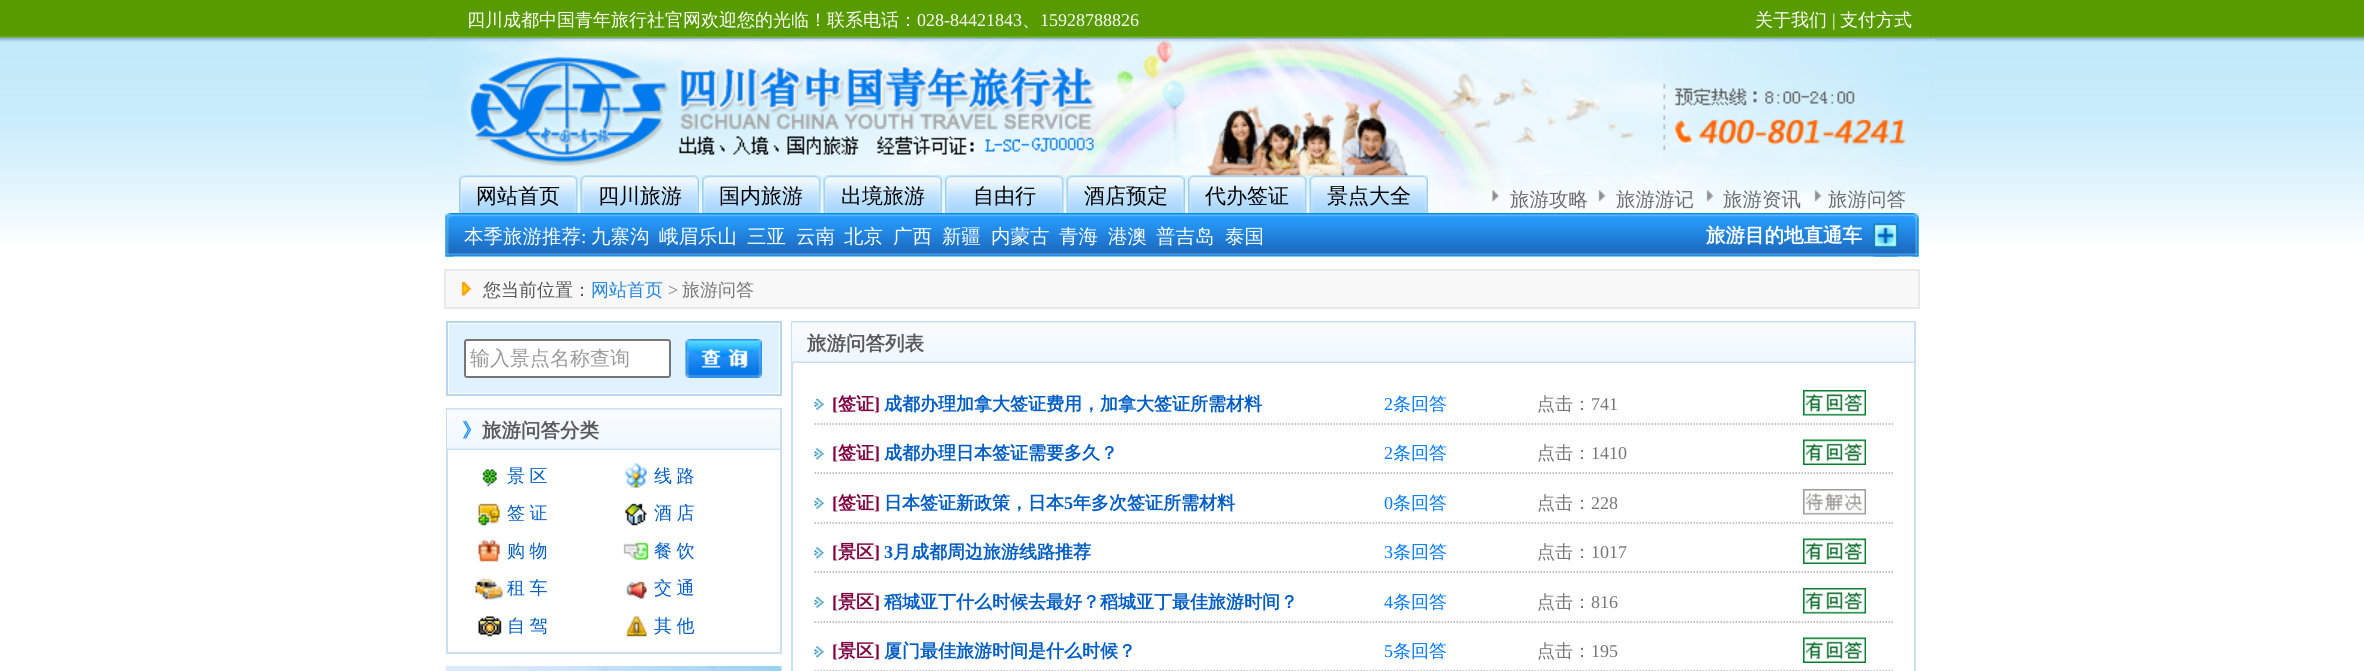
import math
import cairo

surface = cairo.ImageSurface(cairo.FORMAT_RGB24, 2364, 671)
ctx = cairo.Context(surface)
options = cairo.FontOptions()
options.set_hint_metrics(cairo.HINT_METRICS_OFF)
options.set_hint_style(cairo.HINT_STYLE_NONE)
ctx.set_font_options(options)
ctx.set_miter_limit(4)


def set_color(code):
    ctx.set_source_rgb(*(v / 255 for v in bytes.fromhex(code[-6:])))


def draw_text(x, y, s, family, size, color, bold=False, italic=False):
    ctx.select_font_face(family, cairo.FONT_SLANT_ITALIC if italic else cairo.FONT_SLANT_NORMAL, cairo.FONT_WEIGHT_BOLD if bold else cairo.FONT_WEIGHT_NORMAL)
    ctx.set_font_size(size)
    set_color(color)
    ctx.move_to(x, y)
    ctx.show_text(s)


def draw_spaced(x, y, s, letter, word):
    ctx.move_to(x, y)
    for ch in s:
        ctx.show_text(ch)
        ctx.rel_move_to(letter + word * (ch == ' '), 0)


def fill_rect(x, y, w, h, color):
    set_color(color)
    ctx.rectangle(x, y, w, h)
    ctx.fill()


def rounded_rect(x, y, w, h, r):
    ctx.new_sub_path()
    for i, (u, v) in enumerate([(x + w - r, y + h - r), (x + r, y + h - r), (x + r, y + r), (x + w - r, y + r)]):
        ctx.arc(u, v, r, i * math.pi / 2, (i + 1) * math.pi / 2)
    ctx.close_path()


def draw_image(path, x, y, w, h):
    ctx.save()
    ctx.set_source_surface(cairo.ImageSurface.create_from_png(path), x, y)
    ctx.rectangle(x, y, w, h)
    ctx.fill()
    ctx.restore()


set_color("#ffffff")
ctx.paint()
draw_image("assets/img1.png", 0, 0, 2364, 242)
draw_text(467, 26, "四川成都中国青年旅行社官网欢迎您的光临！联系电话：", "WenQuanYi Zen Hei Medium", 18, "#ffffff")
draw_text(917, 26, "028-84421843", "Liberation Serif", 18, "#ffffff")
draw_text(1022, 26, "、", "WenQuanYi Zen Hei Medium", 18, "#ffffff")
draw_text(1040, 26, "15928788826", "Liberation Serif", 18, "#ffffff")
draw_text(1755, 26, "关于我们", "WenQuanYi Zen Hei Medium", 18, "#ffffff")
draw_text(1832, 26, "|", "Liberation Serif", 18, "#ffffff")
draw_text(1840, 26, "支付方式", "WenQuanYi Zen Hei Medium", 18, "#ffffff")
draw_image("assets/img2.png", 430, 39, 590, 137)
draw_image("assets/img3.png", 1020, 39, 642, 137)
draw_image("assets/img4.png", 1662, 39, 273, 137)
draw_image("assets/img5.png", 445, 213, 1474, 44)
draw_image("assets/img6.png", 445, 213, 8, 44)
draw_image("assets/img7.png", 459, 175, 119, 38)
draw_text(476, 203, "网站首页", "WenQuanYi Zen Hei Medium", 21, "#000000")
draw_image("assets/img8.png", 580, 175, 119, 38)
draw_text(598, 203, "四川旅游", "WenQuanYi Zen Hei Medium", 21, "#000000")
draw_image("assets/img9.png", 702, 175, 119, 38)
draw_text(719, 203, "国内旅游", "WenQuanYi Zen Hei Medium", 21, "#000000")
draw_image("assets/img10.png", 823, 175, 119, 38)
draw_text(841, 203, "出境旅游", "WenQuanYi Zen Hei Medium", 21, "#000000")
draw_image("assets/img11.png", 945, 175, 119, 38)
draw_text(973, 203, "自由行", "WenQuanYi Zen Hei Medium", 21, "#000000")
draw_image("assets/img12.png", 1066, 175, 119, 38)
draw_text(1084, 203, "酒店预定", "WenQuanYi Zen Hei Medium", 21, "#000000")
draw_image("assets/img13.png", 1188, 175, 119, 38)
draw_text(1205, 203, "代办签证", "WenQuanYi Zen Hei Medium", 21, "#000000")
draw_image("assets/img14.png", 1309, 175, 119, 38)
draw_text(1327, 203, "景点大全", "WenQuanYi Zen Hei Medium", 21, "#000000")
draw_text(464, 243, "本季旅游推荐", "WenQuanYi Zen Hei Medium", 19.5, "#ffffff")
draw_text(581, 243, ":", "Liberation Serif", 19.5, "#ffffff")
draw_text(591, 243, "九寨沟", "WenQuanYi Zen Hei Medium", 19.5, "#ffffff")
draw_text(659, 243, "峨眉乐山", "WenQuanYi Zen Hei Medium", 19.5, "#ffffff")
draw_text(747, 243, "三亚", "WenQuanYi Zen Hei Medium", 19.5, "#ffffff")
draw_text(796, 243, "云南", "WenQuanYi Zen Hei Medium", 19.5, "#ffffff")
draw_text(844, 243, "北京", "WenQuanYi Zen Hei Medium", 19.5, "#ffffff")
draw_text(893, 243, "广西", "WenQuanYi Zen Hei Medium", 19.5, "#ffffff")
draw_text(942, 243, "新疆", "WenQuanYi Zen Hei Medium", 19.5, "#ffffff")
draw_text(991, 243, "内蒙古", "WenQuanYi Zen Hei Medium", 19.5, "#ffffff")
draw_text(1059, 243, "青海", "WenQuanYi Zen Hei Medium", 19.5, "#ffffff")
draw_text(1108, 243, "港澳", "WenQuanYi Zen Hei Medium", 19.5, "#ffffff")
draw_text(1156, 243, "普吉岛", "WenQuanYi Zen Hei Medium", 19.5, "#ffffff")
draw_text(1225, 243, "泰国", "WenQuanYi Zen Hei Medium", 19.5, "#ffffff")
draw_image("assets/img15.png", 1428, 175, 464, 38)
draw_text(1510, 206, "旅游攻略", "WenQuanYi Zen Hei Medium", 19.5, "#6a6a6a")
draw_text(1616, 206, "旅游游记", "WenQuanYi Zen Hei Medium", 19.5, "#6a6a6a")
draw_text(1723, 206, "旅游资讯", "WenQuanYi Zen Hei Medium", 19.5, "#6a6a6a")
draw_text(1828, 206, "旅游问答", "WenQuanYi Zen Hei Medium", 19.5, "#6a6a6a")
draw_image("assets/img16.png", 1912, 213, 7, 44)
draw_text(1706, 242, "旅游目的地直通车", "WenQuanYi Zen Hei", 19.5, "#ffffff", bold=True)
draw_image("assets/img17.png", 1873, 223, 25, 34)
fill_rect(446, 271, 1472, 36, "#f8f8f8")
draw_image("assets/img18.png", 461, 282, 11, 14)
ctx.rectangle(445, 270, 1474, 38)
set_color("#e9e9e9")
ctx.stroke()
draw_text(483, 296, "您当前位置：", "WenQuanYi Zen Hei Medium", 18, "#535353")
draw_text(591, 296, "网站首页", "WenQuanYi Zen Hei Medium", 18, "#2184de")
draw_text(668, 296, ">", "Liberation Serif", 18, "#757575")
draw_text(682, 296, "旅游问答", "WenQuanYi Zen Hei Medium", 18, "#757575")
ctx.rectangle(447, 322, 334, 73)
set_color("#b9d6ef")
ctx.stroke()
fill_rect(449, 324, 330, 69, "#e0f1ff")
set_color("#ffffff")
rounded_rect(465, 340, 205, 37, 2)
ctx.fill_preserve()
set_color("#767676")
ctx.stroke()
draw_text(470, 365, "输入景点名称查询", "WenQuanYi Zen Hei Medium", 20, "#999999")
draw_image("assets/img19.png", 685, 339, 77, 39)
ctx.rectangle(447, 409, 334, 244)
set_color("#ccdff2")
ctx.stroke()
draw_image("assets/img20.png", 447, 409, 333, 41)
draw_text(462, 437, "》", "WenQuanYi Zen Hei", 19.5, "#158cff", bold=True)
draw_text(482, 437, "旅游问答分类", "WenQuanYi Zen Hei", 19.5, "#5a5a5a", bold=True)
draw_image("assets/img21.png", 482, 469, 15, 18)
ctx.select_font_face("WenQuanYi Zen Hei Medium")
ctx.set_font_size(18)
set_color("#005dc6")
draw_spaced(507, 482, "景 区", 0, -1)
draw_image("assets/img22.png", 625, 463, 22, 25)
draw_spaced(654, 482, "线 路", 0, -1)
draw_image("assets/img23.png", 478, 503, 22, 23)
draw_spaced(507, 519, "签 证", 0, -1)
draw_image("assets/img24.png", 625, 503, 22, 23)
draw_spaced(654, 519, "酒 店", 0, -1)
draw_image("assets/img25.png", 478, 539, 22, 24)
draw_spaced(507, 557, "购 物", 0, -1)
draw_image("assets/img26.png", 623, 542, 26, 18)
draw_spaced(654, 557, "餐 饮", 0, -1)
draw_image("assets/img27.png", 474, 577, 29, 24)
draw_spaced(507, 594, "租 车", 0, -1)
draw_image("assets/img28.png", 626, 581, 21, 18)
draw_spaced(654, 594, "交 通", 0, -1)
draw_image("assets/img29.png", 478, 616, 24, 21)
draw_spaced(507, 632, "自 驾", 0, -1)
draw_image("assets/img30.png", 626, 616, 21, 21)
draw_spaced(654, 632, "其 他", 0, -1)
draw_image("assets/img31.png", 445, 666, 337, 5)
ctx.rectangle(792, 322, 1123, 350)
set_color("#ccdff2")
ctx.stroke()
draw_image("assets/img32.png", 792, 322, 1122, 41)
draw_text(807, 350, "旅游问答列表", "WenQuanYi Zen Hei", 19.5, "#5a5a5a", bold=True)
ctx.new_path()
ctx.move_to(814.5, 424)
ctx.line_to(1894.5, 424)
set_color("#b0b0b0")
ctx.set_line_width(1.5)
ctx.set_dash([1.5, 1.5])
ctx.stroke()
draw_image("assets/img33.png", 814, 399, 10, 12)
draw_text(832, 410, "[", "Liberation Serif", 18, "#800040", bold=True)
draw_text(838, 410, "签证", "WenQuanYi Zen Hei", 18, "#800040", bold=True)
draw_text(874, 410, "]", "Liberation Serif", 18, "#800040", bold=True)
draw_text(884, 410, "成都办理加拿大签证费用，加拿大签证所需材料", "WenQuanYi Zen Hei", 18, "#005dc6", bold=True)
draw_text(1384, 410, "2", "Liberation Serif", 18, "#0078ff")
draw_text(1393, 410, "条回答", "WenQuanYi Zen Hei Medium", 18, "#0078ff")
draw_text(1537, 410, "点击：", "WenQuanYi Zen Hei Medium", 18, "#757575")
draw_text(1591, 410, "741", "Liberation Serif", 18, "#757575")
draw_image("assets/img34.png", 1803, 390, 63, 26)
ctx.new_path()
ctx.move_to(814.5, 473)
ctx.line_to(1894.5, 473)
set_color("#b0b0b0")
ctx.stroke()
draw_image("assets/img35.png", 814, 448, 10, 13)
draw_text(832, 459, "[", "Liberation Serif", 18, "#800040", bold=True)
draw_text(838, 459, "签证", "WenQuanYi Zen Hei", 18, "#800040", bold=True)
draw_text(874, 459, "]", "Liberation Serif", 18, "#800040", bold=True)
draw_text(884, 459, "成都办理日本签证需要多久？", "WenQuanYi Zen Hei", 18, "#005dc6", bold=True)
draw_text(1384, 459, "2", "Liberation Serif", 18, "#0078ff")
draw_text(1393, 459, "条回答", "WenQuanYi Zen Hei Medium", 18, "#0078ff")
draw_text(1537, 459, "点击：", "WenQuanYi Zen Hei Medium", 18, "#757575")
draw_text(1591, 459, "1410", "Liberation Serif", 18, "#757575")
draw_image("assets/img36.png", 1803, 439, 63, 26)
ctx.new_path()
ctx.move_to(814.5, 523)
ctx.line_to(1894.5, 523)
set_color("#b0b0b0")
ctx.stroke()
draw_image("assets/img33.png", 814, 498, 10, 12)
draw_text(832, 509, "[", "Liberation Serif", 18, "#800040", bold=True)
draw_text(838, 509, "签证", "WenQuanYi Zen Hei", 18, "#800040", bold=True)
draw_text(874, 509, "]", "Liberation Serif", 18, "#800040", bold=True)
draw_text(884, 509, "日本签证新政策，日本", "WenQuanYi Zen Hei", 18, "#005dc6", bold=True)
draw_text(1064, 509, "5", "Liberation Serif", 18, "#005dc6", bold=True)
draw_text(1073, 509, "年多次签证所需材料", "WenQuanYi Zen Hei", 18, "#005dc6", bold=True)
draw_text(1384, 509, "0", "Liberation Serif", 18, "#0078ff")
draw_text(1393, 509, "条回答", "WenQuanYi Zen Hei Medium", 18, "#0078ff")
draw_text(1537, 509, "点击：", "WenQuanYi Zen Hei Medium", 18, "#757575")
draw_text(1591, 509, "228", "Liberation Serif", 18, "#757575")
draw_image("assets/img37.png", 1803, 489, 63, 26)
ctx.new_path()
ctx.move_to(814.5, 572)
ctx.line_to(1894.5, 572)
set_color("#b0b0b0")
ctx.stroke()
draw_image("assets/img35.png", 814, 547, 10, 13)
draw_text(832, 558, "[", "Liberation Serif", 18, "#800040", bold=True)
draw_text(838, 558, "景区", "WenQuanYi Zen Hei", 18, "#800040", bold=True)
draw_text(874, 558, "]", "Liberation Serif", 18, "#800040", bold=True)
draw_text(884, 558, "3", "Liberation Serif", 18, "#005dc6", bold=True)
draw_text(893, 558, "月成都周边旅游线路推荐", "WenQuanYi Zen Hei", 18, "#005dc6", bold=True)
draw_text(1384, 558, "3", "Liberation Serif", 18, "#0078ff")
draw_text(1393, 558, "条回答", "WenQuanYi Zen Hei Medium", 18, "#0078ff")
draw_text(1537, 558, "点击：", "WenQuanYi Zen Hei Medium", 18, "#757575")
draw_text(1591, 558, "1017", "Liberation Serif", 18, "#757575")
draw_image("assets/img36.png", 1803, 538, 63, 26)
ctx.new_path()
ctx.move_to(814.5, 622)
ctx.line_to(1894.5, 622)
set_color("#b0b0b0")
ctx.stroke()
draw_image("assets/img33.png", 814, 597, 10, 12)
draw_text(832, 608, "[", "Liberation Serif", 18, "#800040", bold=True)
draw_text(838, 608, "景区", "WenQuanYi Zen Hei", 18, "#800040", bold=True)
draw_text(874, 608, "]", "Liberation Serif", 18, "#800040", bold=True)
draw_text(884, 608, "稻城亚丁什么时候去最好？稻城亚丁最佳旅游时间？", "WenQuanYi Zen Hei", 18, "#005dc6", bold=True)
draw_text(1384, 608, "4", "Liberation Serif", 18, "#0078ff")
draw_text(1393, 608, "条回答", "WenQuanYi Zen Hei Medium", 18, "#0078ff")
draw_text(1537, 608, "点击：", "WenQuanYi Zen Hei Medium", 18, "#757575")
draw_text(1591, 608, "816", "Liberation Serif", 18, "#757575")
draw_image("assets/img34.png", 1803, 588, 63, 26)
ctx.new_path()
ctx.move_to(814.5, 671)
ctx.line_to(1894.5, 671)
set_color("#b0b0b0")
ctx.stroke()
draw_image("assets/img35.png", 814, 646, 10, 13)
draw_text(832, 657, "[", "Liberation Serif", 18, "#800040", bold=True)
draw_text(838, 657, "景区", "WenQuanYi Zen Hei", 18, "#800040", bold=True)
draw_text(874, 657, "]", "Liberation Serif", 18, "#800040", bold=True)
draw_text(884, 657, "厦门最佳旅游时间是什么时候？", "WenQuanYi Zen Hei", 18, "#005dc6", bold=True)
draw_text(1384, 657, "5", "Liberation Serif", 18, "#0078ff")
draw_text(1393, 657, "条回答", "WenQuanYi Zen Hei Medium", 18, "#0078ff")
draw_text(1537, 657, "点击：", "WenQuanYi Zen Hei Medium", 18, "#757575")
draw_text(1591, 657, "195", "Liberation Serif", 18, "#757575")
draw_image("assets/img36.png", 1803, 637, 63, 26)
surface.write_to_png("output.png")
